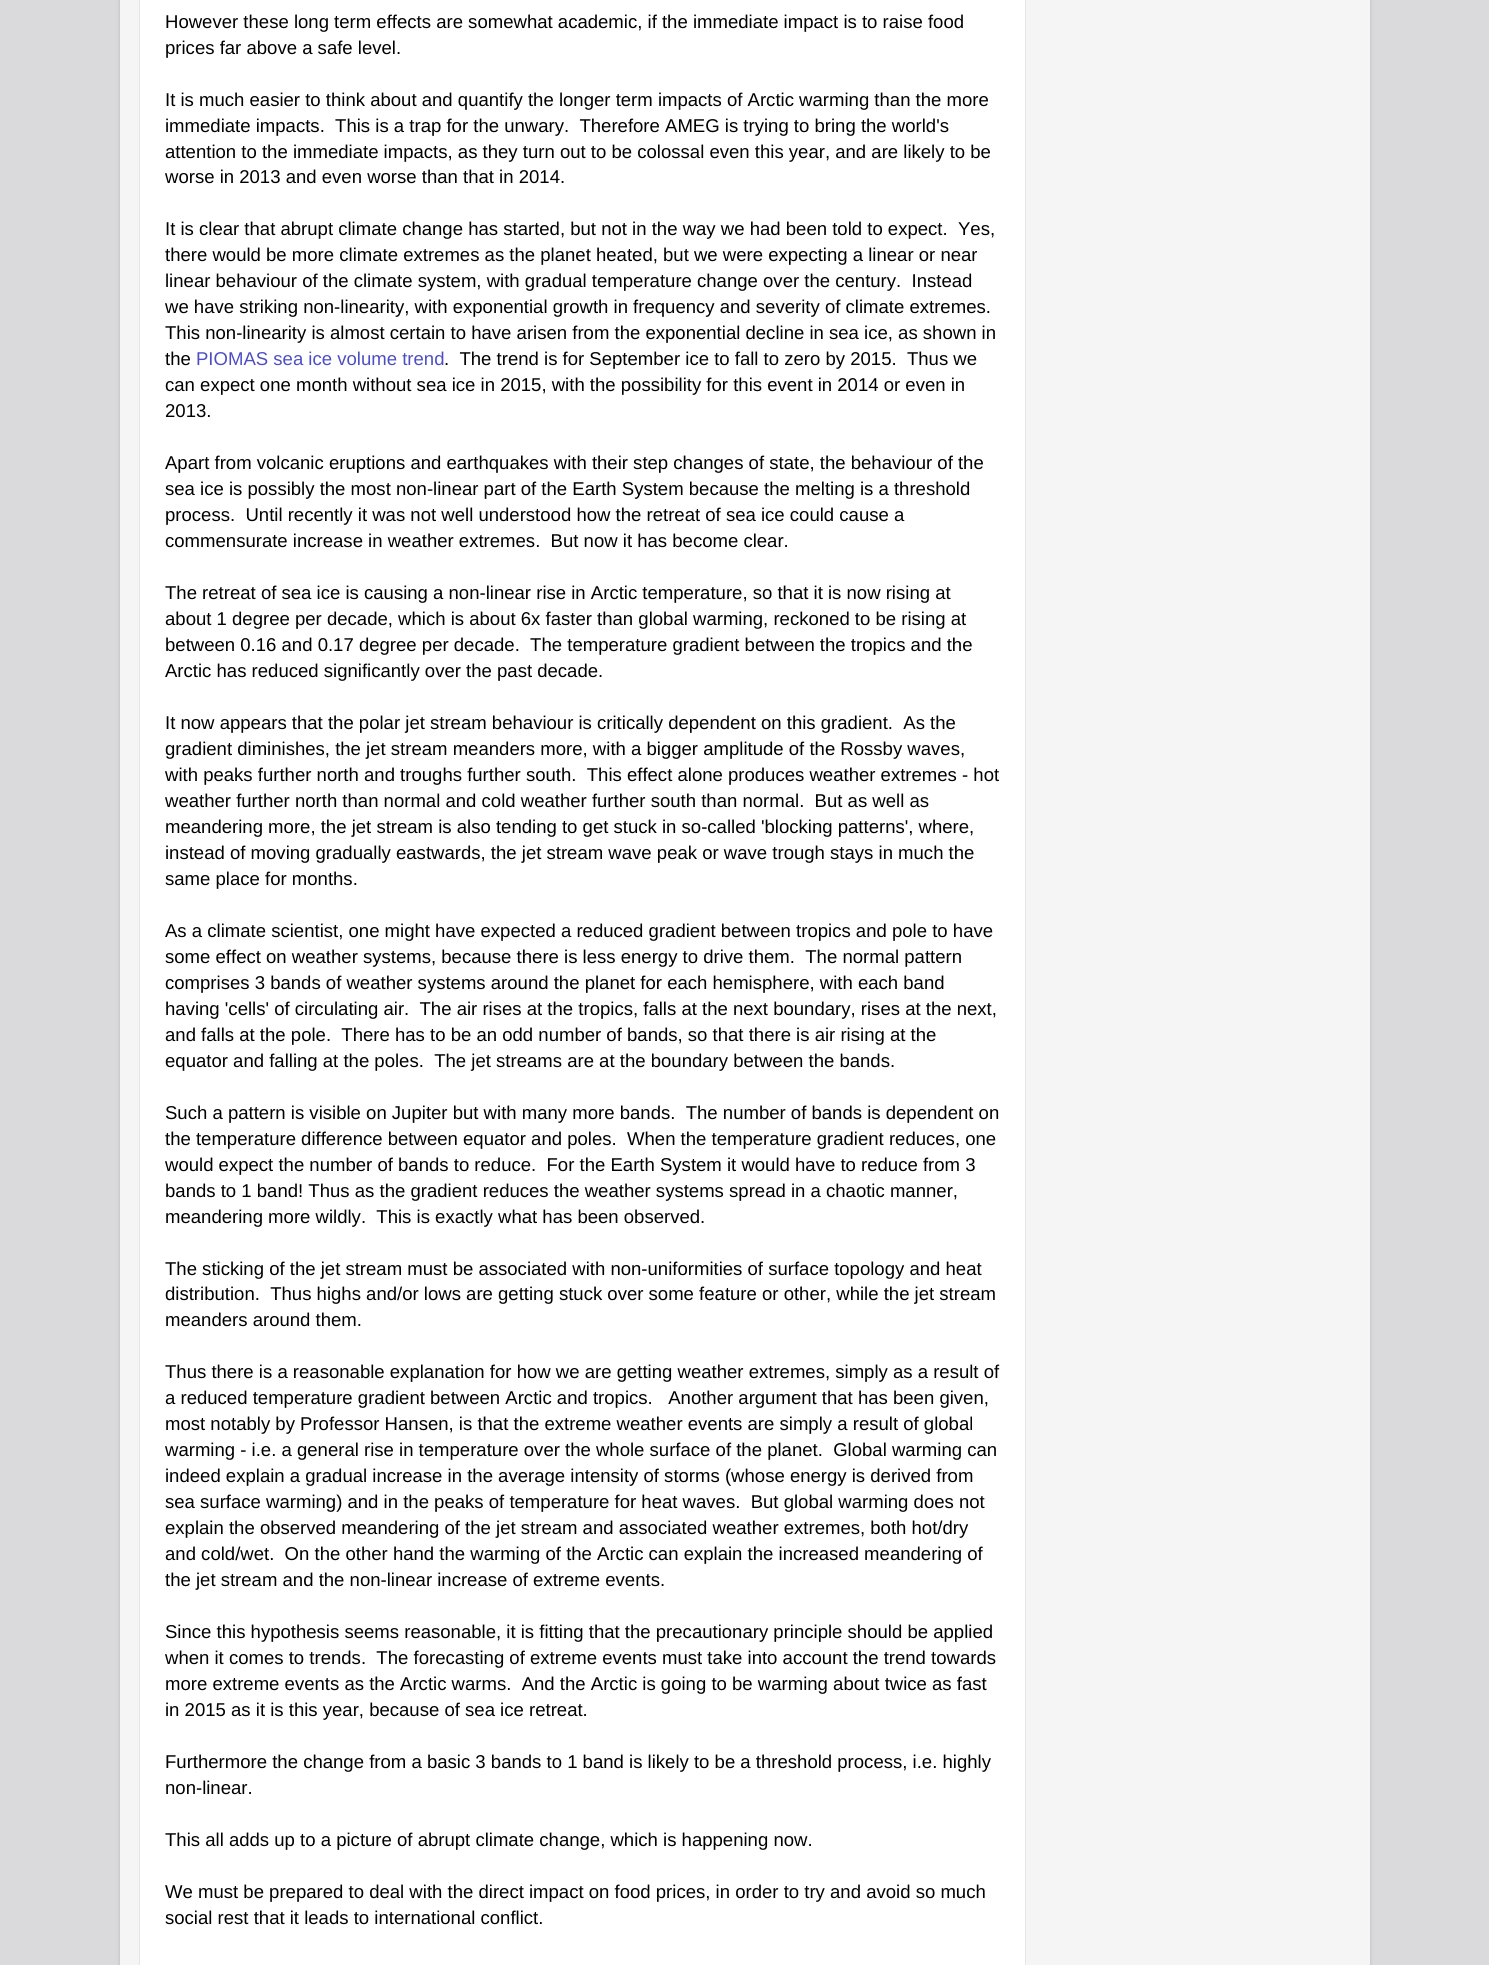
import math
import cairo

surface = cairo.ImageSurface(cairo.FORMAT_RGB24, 1489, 1965)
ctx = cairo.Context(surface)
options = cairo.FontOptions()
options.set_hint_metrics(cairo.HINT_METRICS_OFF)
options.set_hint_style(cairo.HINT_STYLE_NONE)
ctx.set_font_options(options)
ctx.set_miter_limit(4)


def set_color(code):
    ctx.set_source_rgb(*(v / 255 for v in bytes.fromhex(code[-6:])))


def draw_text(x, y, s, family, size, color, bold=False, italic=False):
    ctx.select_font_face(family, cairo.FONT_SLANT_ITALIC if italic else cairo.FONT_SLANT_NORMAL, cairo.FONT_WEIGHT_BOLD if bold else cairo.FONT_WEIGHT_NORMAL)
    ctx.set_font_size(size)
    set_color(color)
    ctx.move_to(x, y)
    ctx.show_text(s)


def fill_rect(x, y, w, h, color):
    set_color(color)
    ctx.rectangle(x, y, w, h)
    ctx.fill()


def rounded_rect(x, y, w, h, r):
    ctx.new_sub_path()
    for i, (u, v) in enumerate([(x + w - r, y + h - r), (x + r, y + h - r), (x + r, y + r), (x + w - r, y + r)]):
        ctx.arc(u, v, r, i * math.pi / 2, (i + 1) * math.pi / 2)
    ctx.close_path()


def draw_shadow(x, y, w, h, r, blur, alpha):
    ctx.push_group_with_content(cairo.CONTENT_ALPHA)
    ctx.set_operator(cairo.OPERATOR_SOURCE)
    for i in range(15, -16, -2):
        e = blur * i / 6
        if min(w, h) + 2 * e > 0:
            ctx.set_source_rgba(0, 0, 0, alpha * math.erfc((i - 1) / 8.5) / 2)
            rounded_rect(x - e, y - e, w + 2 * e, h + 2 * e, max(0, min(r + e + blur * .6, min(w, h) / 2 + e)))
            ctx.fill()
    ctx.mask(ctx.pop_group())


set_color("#dadadc")
ctx.paint()
set_color("#000000")
draw_shadow(120, -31, 1250, 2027, 25, 2, 0.15)
fill_rect(120, 0, 1250, 1965, "#f5f5f5")
set_color("#ffffff")
ctx.rectangle(139.5, -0.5, 886, 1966)
ctx.fill_preserve()
set_color("#e6e6e6")
ctx.set_line_width(1)
ctx.stroke()
draw_text(165, 28, "However these long term effects are somewhat academic, if the immediate impact is to raise food", "Liberation Sans", 18.55, "#000000")
draw_text(165, 54, "prices far above a safe level.", "Liberation Sans", 18.55, "#000000")
draw_text(165, 106, "It is much easier to think about and quantify the longer term impacts of Arctic warming than the more", "Liberation Sans", 18.55, "#000000")
draw_text(165, 132, "immediate impacts.  This is a trap for the unwary.  Therefore AMEG is trying to bring the world's", "Liberation Sans", 18.55, "#000000")
draw_text(165, 158, "attention to the immediate impacts, as they turn out to be colossal even this year, and are likely to be", "Liberation Sans", 18.55, "#000000")
draw_text(165, 183, "worse in 2013 and even worse than that in 2014.", "Liberation Sans", 18.55, "#000000")
draw_text(165, 235, "It is clear that abrupt climate change has started, but not in the way we had been told to expect.  Yes,", "Liberation Sans", 18.55, "#000000")
draw_text(165, 261, "there would be more climate extremes as the planet heated, but we were expecting a linear or near", "Liberation Sans", 18.55, "#000000")
draw_text(165, 287, "linear behaviour of the climate system, with gradual temperature change over the century.  Instead", "Liberation Sans", 18.55, "#000000")
draw_text(165, 313, "we have striking non-linearity, with exponential growth in frequency and severity of climate extremes.", "Liberation Sans", 18.55, "#000000")
draw_text(165, 339, "This non-linearity is almost certain to have arisen from the exponential decline in sea ice, as shown in", "Liberation Sans", 18.55, "#000000")
draw_text(165, 365, "the", "Liberation Sans", 18.55, "#000000")
draw_text(196, 365, "PIOMAS sea ice volume trend", "Liberation Sans", 18.55, "#4e4ec4")
draw_text(444, 365, ".  The trend is for September ice to fall to zero by 2015.  Thus we", "Liberation Sans", 18.55, "#000000")
draw_text(165, 391, "can expect one month without sea ice in 2015, with the possibility for this event in 2014 or even in", "Liberation Sans", 18.55, "#000000")
draw_text(165, 417, "2013.", "Liberation Sans", 18.55, "#000000")
draw_text(165, 469, "Apart from volcanic eruptions and earthquakes with their step changes of state, the behaviour of the", "Liberation Sans", 18.55, "#000000")
draw_text(165, 495, "sea ice is possibly the most non-linear part of the Earth System because the melting is a threshold", "Liberation Sans", 18.55, "#000000")
draw_text(165, 521, "process.  Until recently it was not well understood how the retreat of sea ice could cause a", "Liberation Sans", 18.55, "#000000")
draw_text(165, 547, "commensurate increase in weather extremes.  But now it has become clear.", "Liberation Sans", 18.55, "#000000")
draw_text(165, 599, "The retreat of sea ice is causing a non-linear rise in Arctic temperature, so that it is now rising at", "Liberation Sans", 18.55, "#000000")
draw_text(165, 625, "about 1 degree per decade, which is about 6x faster than global warming, reckoned to be rising at", "Liberation Sans", 18.55, "#000000")
draw_text(165, 651, "between 0.16 and 0.17 degree per decade.  The temperature gradient between the tropics and the", "Liberation Sans", 18.55, "#000000")
draw_text(165, 677, "Arctic has reduced significantly over the past decade.", "Liberation Sans", 18.55, "#000000")
draw_text(165, 729, "It now appears that the polar jet stream behaviour is critically dependent on this gradient.  As the", "Liberation Sans", 18.55, "#000000")
draw_text(165, 755, "gradient diminishes, the jet stream meanders more, with a bigger amplitude of the Rossby waves,", "Liberation Sans", 18.55, "#000000")
draw_text(165, 781, "with peaks further north and troughs further south.  This effect alone produces weather extremes - hot", "Liberation Sans", 18.55, "#000000")
draw_text(165, 807, "weather further north than normal and cold weather further south than normal.  But as well as", "Liberation Sans", 18.55, "#000000")
draw_text(165, 833, "meandering more, the jet stream is also tending to get stuck in so-called 'blocking patterns', where,", "Liberation Sans", 18.55, "#000000")
draw_text(165, 859, "instead of moving gradually eastwards, the jet stream wave peak or wave trough stays in much the", "Liberation Sans", 18.55, "#000000")
draw_text(165, 885, "same place for months.", "Liberation Sans", 18.55, "#000000")
draw_text(165, 937, "As a climate scientist, one might have expected a reduced gradient between tropics and pole to have", "Liberation Sans", 18.55, "#000000")
draw_text(165, 963, "some effect on weather systems, because there is less energy to drive them.  The normal pattern", "Liberation Sans", 18.55, "#000000")
draw_text(165, 989, "comprises 3 bands of weather systems around the planet for each hemisphere, with each band", "Liberation Sans", 18.55, "#000000")
draw_text(165, 1015, "having 'cells' of circulating air.  The air rises at the tropics, falls at the next boundary, rises at the next,", "Liberation Sans", 18.55, "#000000")
draw_text(165, 1041, "and falls at the pole.  There has to be an odd number of bands, so that there is air rising at the", "Liberation Sans", 18.55, "#000000")
draw_text(165, 1067, "equator and falling at the poles.  The jet streams are at the boundary between the bands.", "Liberation Sans", 18.55, "#000000")
draw_text(165, 1119, "Such a pattern is visible on Jupiter but with many more bands.  The number of bands is dependent on", "Liberation Sans", 18.55, "#000000")
draw_text(165, 1145, "the temperature difference between equator and poles.  When the temperature gradient reduces, one", "Liberation Sans", 18.55, "#000000")
draw_text(165, 1171, "would expect the number of bands to reduce.  For the Earth System it would have to reduce from 3", "Liberation Sans", 18.55, "#000000")
draw_text(165, 1197, "bands to 1 band! Thus as the gradient reduces the weather systems spread in a chaotic manner,", "Liberation Sans", 18.55, "#000000")
draw_text(165, 1223, "meandering more wildly.  This is exactly what has been observed.", "Liberation Sans", 18.55, "#000000")
draw_text(165, 1275, "The sticking of the jet stream must be associated with non-uniformities of surface topology and heat", "Liberation Sans", 18.55, "#000000")
draw_text(165, 1300, "distribution.  Thus highs and/or lows are getting stuck over some feature or other, while the jet stream", "Liberation Sans", 18.55, "#000000")
draw_text(165, 1326, "meanders around them.", "Liberation Sans", 18.55, "#000000")
draw_text(165, 1378, "Thus there is a reasonable explanation for how we are getting weather extremes, simply as a result of", "Liberation Sans", 18.55, "#000000")
draw_text(165, 1404, "a reduced temperature gradient between Arctic and tropics.   Another argument that has been given,", "Liberation Sans", 18.55, "#000000")
draw_text(165, 1430, "most notably by Professor Hansen, is that the extreme weather events are simply a result of global", "Liberation Sans", 18.55, "#000000")
draw_text(165, 1456, "warming - i.e. a general rise in temperature over the whole surface of the planet.  Global warming can", "Liberation Sans", 18.55, "#000000")
draw_text(165, 1482, "indeed explain a gradual increase in the average intensity of storms (whose energy is derived from", "Liberation Sans", 18.55, "#000000")
draw_text(165, 1508, "sea surface warming) and in the peaks of temperature for heat waves.  But global warming does not", "Liberation Sans", 18.55, "#000000")
draw_text(165, 1534, "explain the observed meandering of the jet stream and associated weather extremes, both hot/dry", "Liberation Sans", 18.55, "#000000")
draw_text(165, 1560, "and cold/wet.  On the other hand the warming of the Arctic can explain the increased meandering of", "Liberation Sans", 18.55, "#000000")
draw_text(165, 1586, "the jet stream and the non-linear increase of extreme events.", "Liberation Sans", 18.55, "#000000")
draw_text(165, 1638, "Since this hypothesis seems reasonable, it is fitting that the precautionary principle should be applied", "Liberation Sans", 18.55, "#000000")
draw_text(165, 1664, "when it comes to trends.  The forecasting of extreme events must take into account the trend towards", "Liberation Sans", 18.55, "#000000")
draw_text(165, 1690, "more extreme events as the Arctic warms.  And the Arctic is going to be warming about twice as fast", "Liberation Sans", 18.55, "#000000")
draw_text(165, 1716, "in 2015 as it is this year, because of sea ice retreat.", "Liberation Sans", 18.55, "#000000")
draw_text(165, 1768, "Furthermore the change from a basic 3 bands to 1 band is likely to be a threshold process, i.e. highly", "Liberation Sans", 18.55, "#000000")
draw_text(165, 1794, "non-linear.", "Liberation Sans", 18.55, "#000000")
draw_text(165, 1846, "This all adds up to a picture of abrupt climate change, which is happening now.", "Liberation Sans", 18.55, "#000000")
draw_text(165, 1898, "We must be prepared to deal with the direct impact on food prices, in order to try and avoid so much", "Liberation Sans", 18.55, "#000000")
draw_text(165, 1924, "social rest that it leads to international conflict.", "Liberation Sans", 18.55, "#000000")
surface.write_to_png("output.png")
